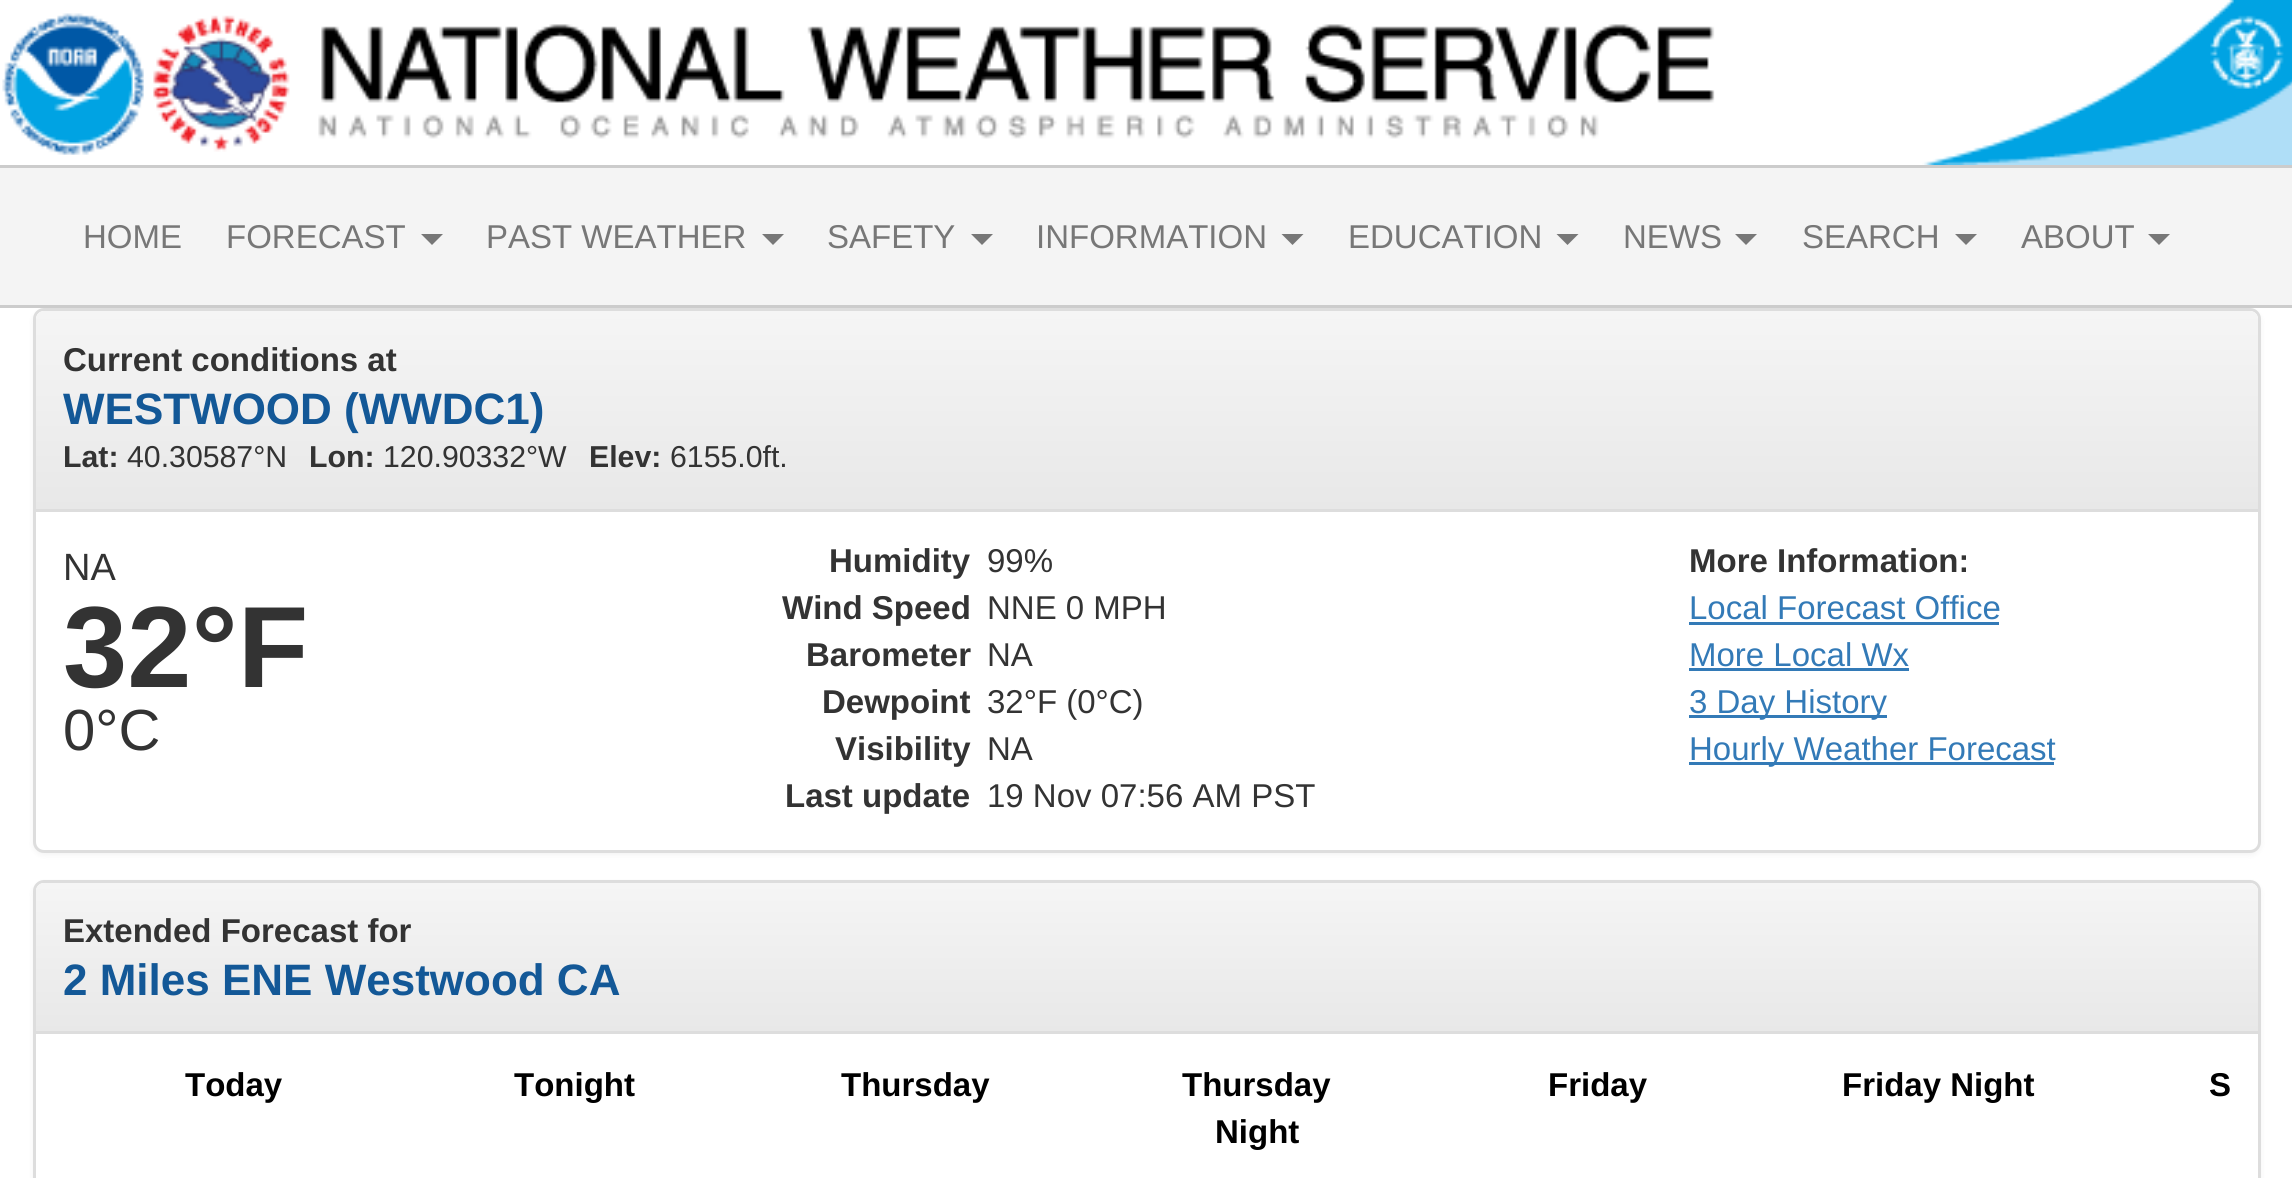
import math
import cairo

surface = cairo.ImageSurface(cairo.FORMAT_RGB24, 2292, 1178)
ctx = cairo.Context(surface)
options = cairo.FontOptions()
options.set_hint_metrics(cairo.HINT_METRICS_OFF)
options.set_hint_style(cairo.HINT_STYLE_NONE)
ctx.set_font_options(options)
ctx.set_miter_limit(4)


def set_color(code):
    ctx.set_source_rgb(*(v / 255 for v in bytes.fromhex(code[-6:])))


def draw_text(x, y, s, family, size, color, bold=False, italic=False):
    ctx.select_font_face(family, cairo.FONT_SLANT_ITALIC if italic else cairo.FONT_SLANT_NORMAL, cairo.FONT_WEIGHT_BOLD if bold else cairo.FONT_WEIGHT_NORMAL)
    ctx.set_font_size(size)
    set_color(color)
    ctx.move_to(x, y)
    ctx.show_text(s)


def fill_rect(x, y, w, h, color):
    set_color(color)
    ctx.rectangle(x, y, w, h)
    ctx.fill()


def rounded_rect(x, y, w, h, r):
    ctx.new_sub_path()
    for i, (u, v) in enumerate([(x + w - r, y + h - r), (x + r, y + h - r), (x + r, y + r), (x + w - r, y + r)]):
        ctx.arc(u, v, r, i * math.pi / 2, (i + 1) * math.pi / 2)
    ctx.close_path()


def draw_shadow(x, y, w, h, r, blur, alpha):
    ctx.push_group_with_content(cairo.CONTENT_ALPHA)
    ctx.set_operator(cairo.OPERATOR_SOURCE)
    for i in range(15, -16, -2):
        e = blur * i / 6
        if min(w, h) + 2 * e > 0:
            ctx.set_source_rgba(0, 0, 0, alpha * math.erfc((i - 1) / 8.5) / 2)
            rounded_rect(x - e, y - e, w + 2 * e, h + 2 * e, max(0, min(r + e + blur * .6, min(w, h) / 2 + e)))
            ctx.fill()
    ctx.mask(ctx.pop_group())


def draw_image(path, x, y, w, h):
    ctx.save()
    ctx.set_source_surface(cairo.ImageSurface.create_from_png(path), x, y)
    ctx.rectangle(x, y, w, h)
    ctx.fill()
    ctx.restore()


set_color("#ffffff")
ctx.paint()
draw_image("assets/img1.png", 2, 13, 142, 142)
draw_image("assets/img2.png", 153, 15, 1562, 137)
draw_image("assets/img3.png", 1922, 0, 370, 165)
set_color("#000000")
draw_shadow(33, 311, 2228, 544, 11, 3, 0.05)
fill_rect(0, 168, 2292, 137, "#f4f4f4")
fill_rect(0, 165, 2292, 3, "#cccccc")
fill_rect(0, 305, 2292, 3, "#cccccc")
draw_text(83, 248, "HOME", "Liberation Sans", 33, "#777777")
draw_text(226, 248, "FORECAST", "Liberation Sans", 33, "#777777")
ctx.new_path()
ctx.move_to(421, 234)
ctx.line_to(443, 234)
ctx.line_to(432, 245)
ctx.close_path()
ctx.fill()
draw_text(486, 248, "PAST WEATHER", "Liberation Sans", 33, "#777777")
ctx.new_path()
ctx.move_to(762, 234)
ctx.line_to(784, 234)
ctx.line_to(773, 245)
ctx.close_path()
ctx.fill()
draw_text(827, 248, "SAFETY", "Liberation Sans", 33, "#777777")
ctx.new_path()
ctx.move_to(971, 234)
ctx.line_to(993, 234)
ctx.line_to(982, 245)
ctx.close_path()
ctx.fill()
draw_text(1036, 248, "INFORMATION", "Liberation Sans", 33, "#777777")
ctx.new_path()
ctx.move_to(1281.5, 234)
ctx.line_to(1303.5, 234)
ctx.line_to(1292.5, 245)
ctx.close_path()
ctx.fill()
draw_text(1348, 248, "EDUCATION", "Liberation Sans", 33, "#777777")
ctx.new_path()
ctx.move_to(1556.5, 234)
ctx.line_to(1578.5, 234)
ctx.line_to(1567.5, 245)
ctx.close_path()
ctx.fill()
draw_text(1623, 248, "NEWS", "Liberation Sans", 33, "#777777")
ctx.new_path()
ctx.move_to(1735, 234)
ctx.line_to(1757, 234)
ctx.line_to(1746, 245)
ctx.close_path()
ctx.fill()
draw_text(1802, 248, "SEARCH", "Liberation Sans", 33, "#777777")
ctx.new_path()
ctx.move_to(1955, 234)
ctx.line_to(1977, 234)
ctx.line_to(1966, 245)
ctx.close_path()
ctx.fill()
draw_text(2021, 248, "ABOUT", "Liberation Sans", 33, "#777777")
ctx.new_path()
ctx.move_to(2148, 234)
ctx.line_to(2170, 234)
ctx.line_to(2159, 245)
ctx.close_path()
ctx.fill()
set_color("#ffffff")
rounded_rect(34.5, 309.5, 2225, 542, 9.5)
ctx.fill_preserve()
set_color("#dddddd")
ctx.set_line_width(3)
ctx.stroke()
gradient = cairo.LinearGradient(1147, 311, 1147, 509)
gradient.add_color_stop_rgba(0, 0.961, 0.961, 0.961, 1)
gradient.add_color_stop_rgba(1, 0.91, 0.91, 0.91, 1)
ctx.set_source(gradient)
ctx.new_path()
ctx.move_to(44, 311)
ctx.line_to(2250, 311)
ctx.curve_to(2254.5, 311, 2258, 314.5, 2258, 319)
ctx.line_to(2258, 509)
ctx.line_to(36, 509)
ctx.line_to(36, 319)
ctx.curve_to(36, 314.5, 39.5, 311, 44, 311)
ctx.close_path()
ctx.fill()
fill_rect(36, 509, 2222, 3, "#dddddd")
draw_text(63, 371, "Current conditions at", "Liberation Sans", 33, "#333333", bold=True)
draw_text(63, 424, "WESTWOOD (WWDC1)", "Liberation Sans", 44, "#135897", bold=True)
draw_text(63, 467, "Lat:", "Liberation Sans", 30.25, "#333333", bold=True)
draw_text(127, 467, "40.30587°N", "Liberation Sans", 30.25, "#333333")
draw_text(309, 467, "Lon:", "Liberation Sans", 30.25, "#333333", bold=True)
draw_text(383, 467, "120.90332°W", "Liberation Sans", 30.25, "#333333")
draw_text(589, 467, "Elev:", "Liberation Sans", 30.25, "#333333", bold=True)
draw_text(670, 467, "6155.0ft.", "Liberation Sans", 30.25, "#333333")
draw_text(63, 580, "NA", "Liberation Sans", 38, "#333333")
draw_text(63, 687, "32°F", "Liberation Sans", 115.5, "#333333", bold=True)
draw_text(63, 750, "0°C", "Liberation Sans", 58, "#333333")
draw_text(829, 572, "Humidity", "Liberation Sans", 33, "#333333", bold=True)
draw_text(987, 572, "99%", "Liberation Sans", 33, "#333333")
draw_text(782, 619, "Wind Speed", "Liberation Sans", 33, "#333333", bold=True)
draw_text(987, 619, "NNE 0 MPH", "Liberation Sans", 33, "#333333")
draw_text(806, 666, "Barometer", "Liberation Sans", 33, "#333333", bold=True)
draw_text(987, 666, "NA", "Liberation Sans", 33, "#333333")
draw_text(822, 713, "Dewpoint", "Liberation Sans", 33, "#333333", bold=True)
draw_text(987, 713, "32°F (0°C)", "Liberation Sans", 33, "#333333")
draw_text(835, 760, "Visibility", "Liberation Sans", 33, "#333333", bold=True)
draw_text(987, 760, "NA", "Liberation Sans", 33, "#333333")
draw_text(785, 807, "Last update", "Liberation Sans", 33, "#333333", bold=True)
draw_text(987, 807, "19 Nov 07:56 AM PST", "Liberation Sans", 33, "#333333")
draw_text(1689, 572, "More Information:", "Liberation Sans", 33, "#333333", bold=True)
draw_text(1689, 619, "Local Forecast Office", "Liberation Sans", 33, "#337ab7")
fill_rect(1689, 622, 310, 3, "#337ab7")
draw_text(1689, 666, "More Local Wx", "Liberation Sans", 33, "#337ab7")
fill_rect(1689, 668, 220, 3, "#337ab7")
fill_rect(1689, 715, 198, 3, "#337ab7")
draw_text(1689, 713, "3 Day History", "Liberation Sans", 33, "#337ab7")
fill_rect(1689, 762, 365, 3, "#337ab7")
draw_text(1689, 760, "Hourly Weather Forecast", "Liberation Sans", 33, "#337ab7")
set_color("#000000")
draw_shadow(33, 883, 2228, 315, 11, 3, 0.05)
set_color("#ffffff")
rounded_rect(34.5, 881.5, 2225, 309, 9.5)
ctx.fill_preserve()
set_color("#dddddd")
ctx.stroke()
gradient = cairo.LinearGradient(1147, 883, 1147, 1031)
gradient.add_color_stop_rgba(0, 0.961, 0.961, 0.961, 1)
gradient.add_color_stop_rgba(1, 0.91, 0.91, 0.91, 1)
ctx.set_source(gradient)
ctx.new_path()
ctx.move_to(44, 883)
ctx.line_to(2250, 883)
ctx.curve_to(2254.5, 883, 2258, 886.5, 2258, 891)
ctx.line_to(2258, 1031)
ctx.line_to(36, 1031)
ctx.line_to(36, 891)
ctx.curve_to(36, 886.5, 39.5, 883, 44, 883)
ctx.close_path()
ctx.fill()
fill_rect(36, 1031, 2222, 3, "#dddddd")
draw_text(63, 942, "Extended Forecast for", "Liberation Sans", 33, "#333333", bold=True)
draw_text(63, 995, "2 Miles ENE Westwood CA", "Liberation Sans", 44, "#135897", bold=True)
draw_text(185, 1096, "Today", "Liberation Sans", 33, "#000000", bold=True)
draw_text(514, 1096, "Tonight", "Liberation Sans", 33, "#000000", bold=True)
draw_text(841, 1096, "Thursday", "Liberation Sans", 33, "#000000", bold=True)
draw_text(1182, 1096, "Thursday", "Liberation Sans", 33, "#000000", bold=True)
draw_text(1215, 1143, "Night", "Liberation Sans", 33, "#000000", bold=True)
draw_text(1548, 1096, "Friday", "Liberation Sans", 33, "#000000", bold=True)
draw_text(1842, 1096, "Friday Night", "Liberation Sans", 33, "#000000", bold=True)
draw_text(2209, 1096, "S", "Liberation Sans", 33, "#000000", bold=True)
surface.write_to_png("output.png")
